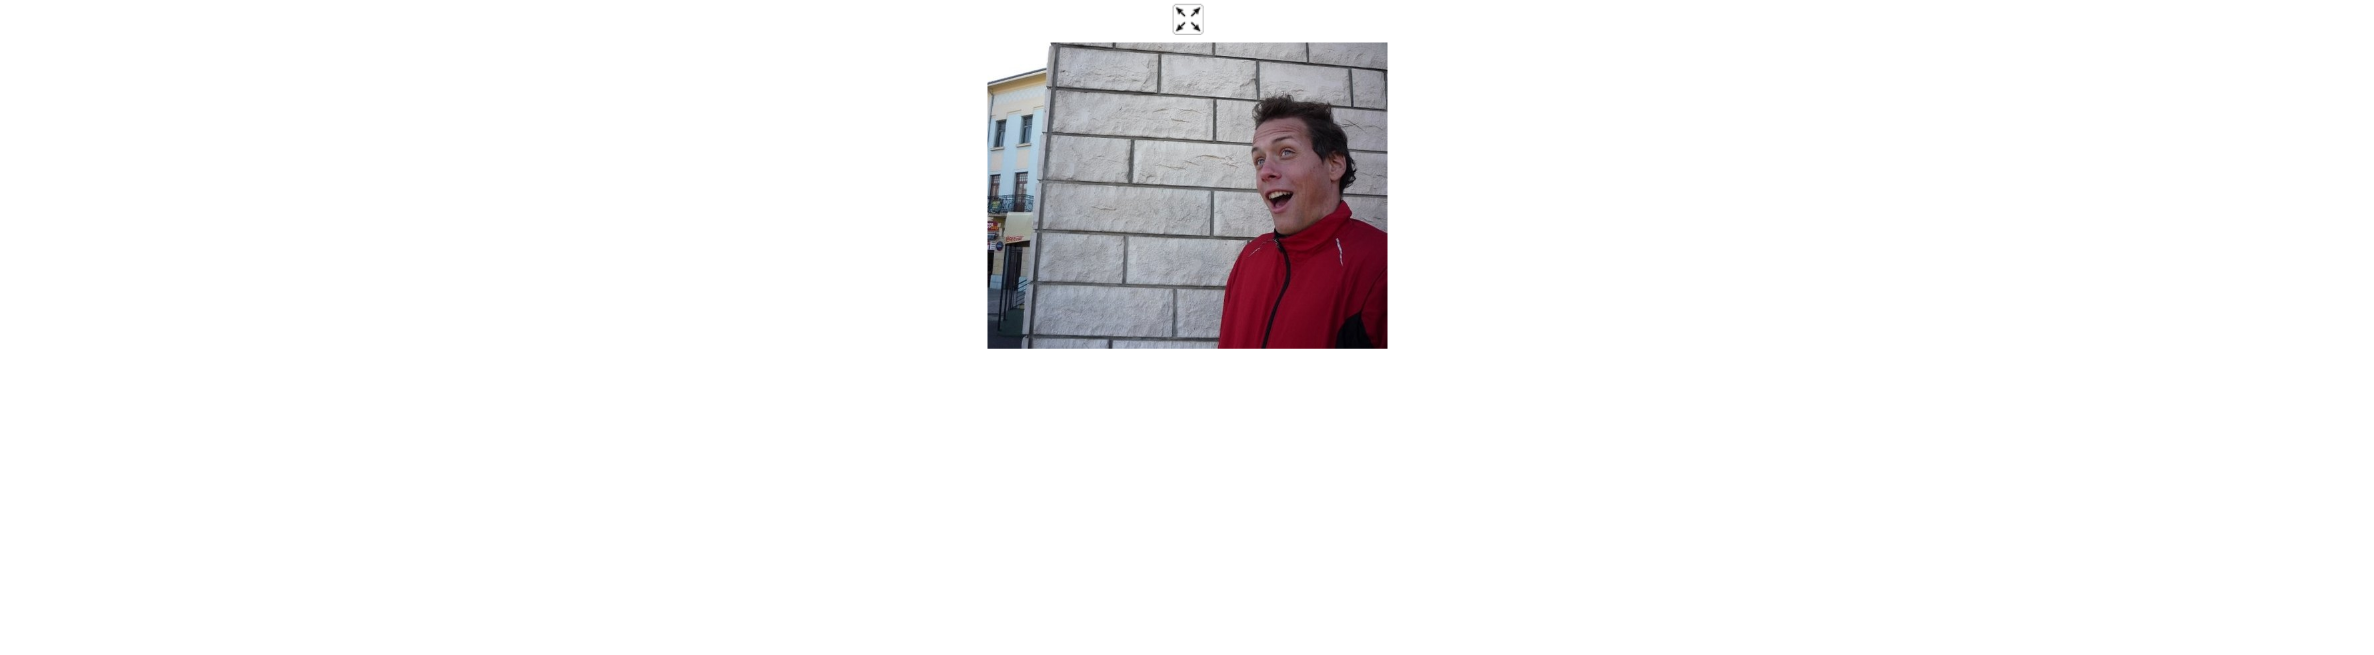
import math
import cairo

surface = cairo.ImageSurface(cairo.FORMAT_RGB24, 2374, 655)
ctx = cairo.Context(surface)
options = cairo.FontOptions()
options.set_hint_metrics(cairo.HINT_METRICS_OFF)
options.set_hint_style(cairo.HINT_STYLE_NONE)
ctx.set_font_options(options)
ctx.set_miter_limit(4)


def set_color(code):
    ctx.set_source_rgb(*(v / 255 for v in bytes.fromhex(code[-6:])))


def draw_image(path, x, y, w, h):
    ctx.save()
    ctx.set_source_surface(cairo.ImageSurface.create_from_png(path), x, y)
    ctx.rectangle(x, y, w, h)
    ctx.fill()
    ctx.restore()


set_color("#ffffff")
ctx.paint()
draw_image("assets/img1.png", 1172, 3, 32, 32)
draw_image("assets/img2.png", 987, 42, 401, 307)
surface.write_to_png("output.png")
